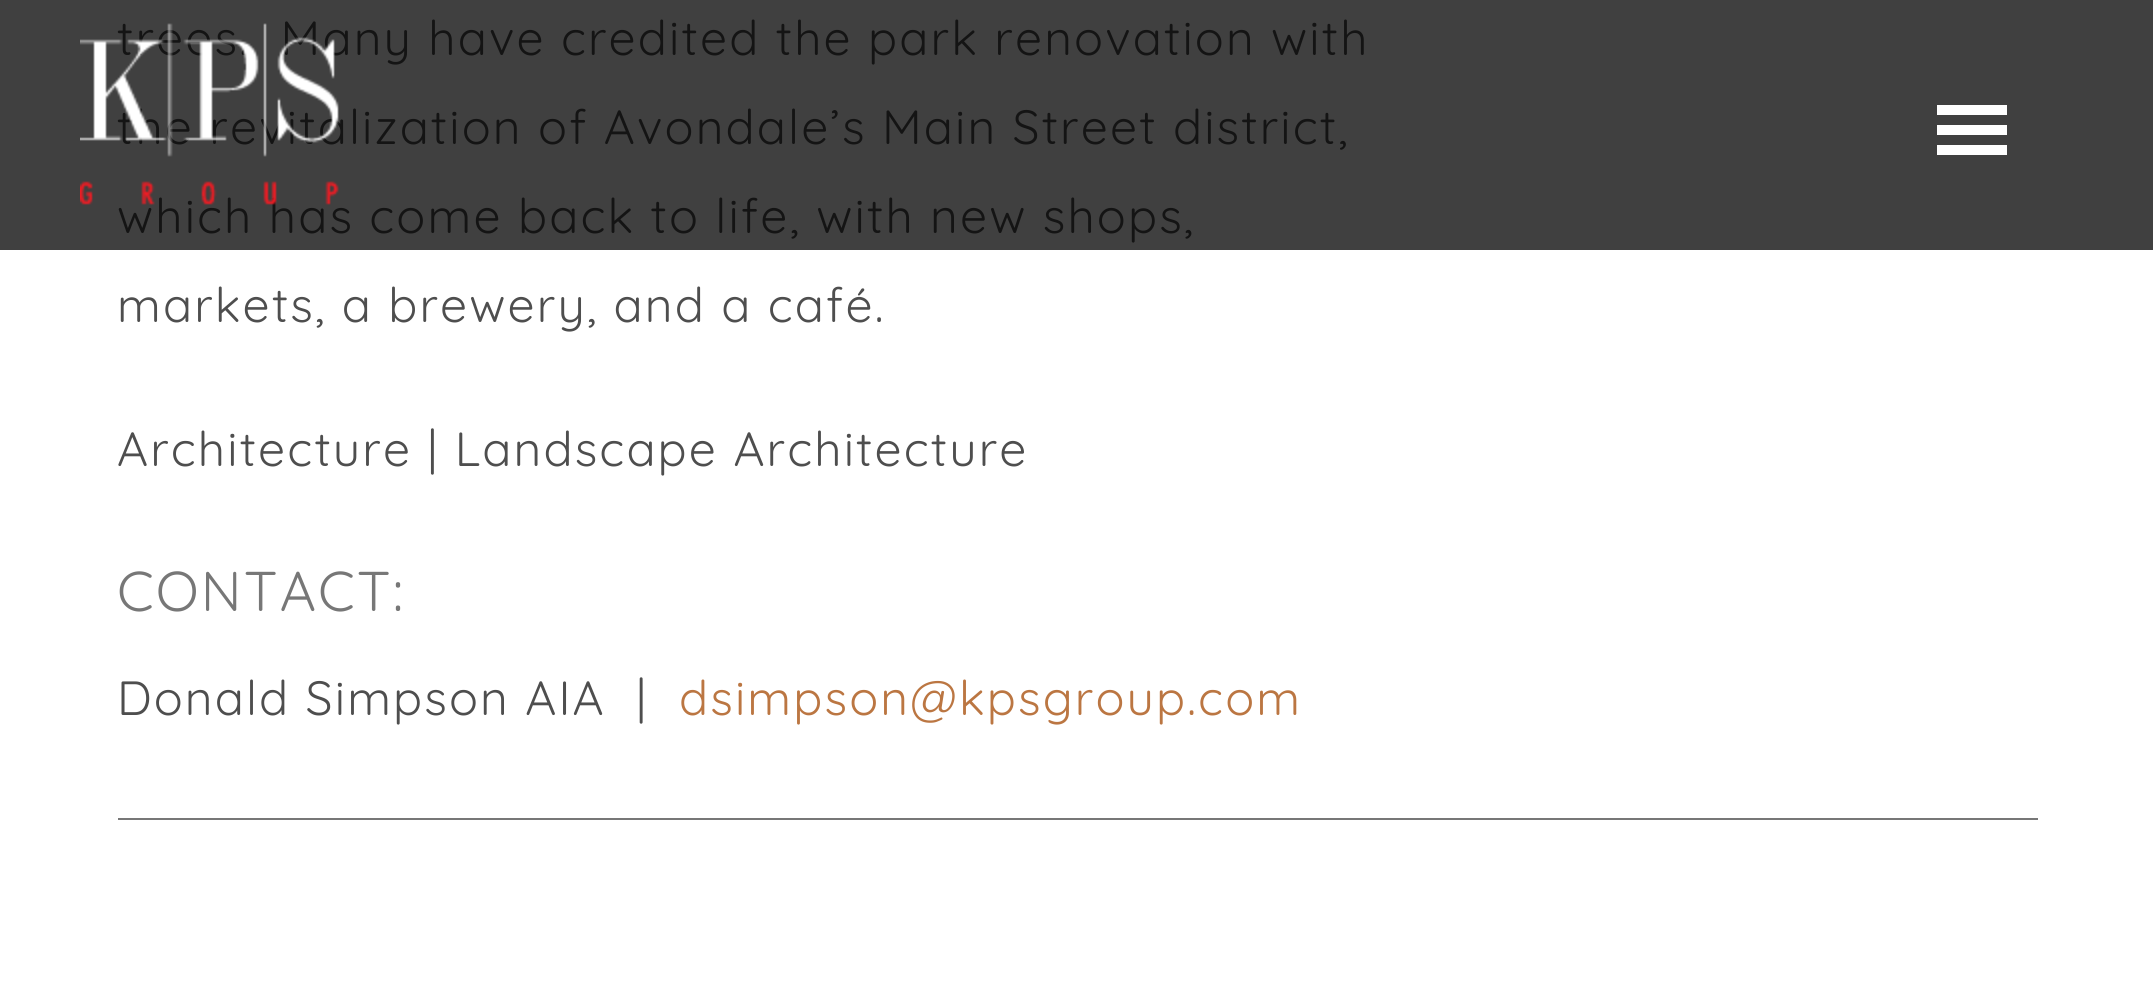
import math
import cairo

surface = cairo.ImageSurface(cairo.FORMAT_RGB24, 2153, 988)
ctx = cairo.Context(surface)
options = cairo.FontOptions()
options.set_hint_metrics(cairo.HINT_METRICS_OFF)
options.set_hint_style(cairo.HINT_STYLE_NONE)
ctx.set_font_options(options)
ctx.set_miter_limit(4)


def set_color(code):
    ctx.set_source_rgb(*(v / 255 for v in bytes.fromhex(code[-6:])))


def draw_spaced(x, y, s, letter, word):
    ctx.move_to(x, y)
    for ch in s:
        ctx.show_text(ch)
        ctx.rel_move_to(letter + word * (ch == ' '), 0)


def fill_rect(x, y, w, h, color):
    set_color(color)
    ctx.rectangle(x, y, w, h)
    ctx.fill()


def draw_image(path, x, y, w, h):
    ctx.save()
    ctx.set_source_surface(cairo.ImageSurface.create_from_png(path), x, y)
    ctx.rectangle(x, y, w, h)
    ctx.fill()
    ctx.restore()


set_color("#ffffff")
ctx.paint()
fill_rect(0, 0, 2153, 250, "#404040")
ctx.select_font_face("Quicksand")
ctx.set_font_size(48)
set_color("#141414")
draw_spaced(117, 55, "trees.  Many have credited the park renovation with", 2.15, 0)
draw_spaced(117, 144, "the revitalization of Avondale’s Main Street district,", 2.15, 0)
draw_spaced(117, 233, "which has come back to life, with new shops,", 2.15, 0)
set_color("#4e4e4e")
draw_spaced(117, 322, "markets, a brewery, and a café.", 2.15, 0)
draw_spaced(117, 466, "Architecture | Landscape Architecture", 2.15, 0)
ctx.set_font_size(56)
set_color("#777777")
draw_spaced(117, 611, "CONTACT:", 2.15, 0)
ctx.set_font_size(48)
set_color("#4e4e4e")
draw_spaced(117, 715, "Donald Simpson AIA  |", 2.15, 0)
set_color("#bb7642")
draw_spaced(679, 715, "dsimpson@kpsgroup.com", 2.15, 0)
fill_rect(118, 818, 1920, 2, "#777777")
draw_image("assets/img1.png", 80, 23, 259, 182)
set_color("#ffffff")
ctx.new_path()
ctx.move_to(1937, 155)
ctx.line_to(2007, 155)
ctx.line_to(2007, 145)
ctx.line_to(1937, 145)
ctx.close_path()
ctx.move_to(1937, 105)
ctx.line_to(1937, 115)
ctx.line_to(2007, 115)
ctx.line_to(2007, 105)
ctx.close_path()
ctx.move_to(1937, 135)
ctx.line_to(2007, 135)
ctx.line_to(2007, 125)
ctx.line_to(1937, 125)
ctx.close_path()
ctx.fill()
surface.write_to_png("output.png")
